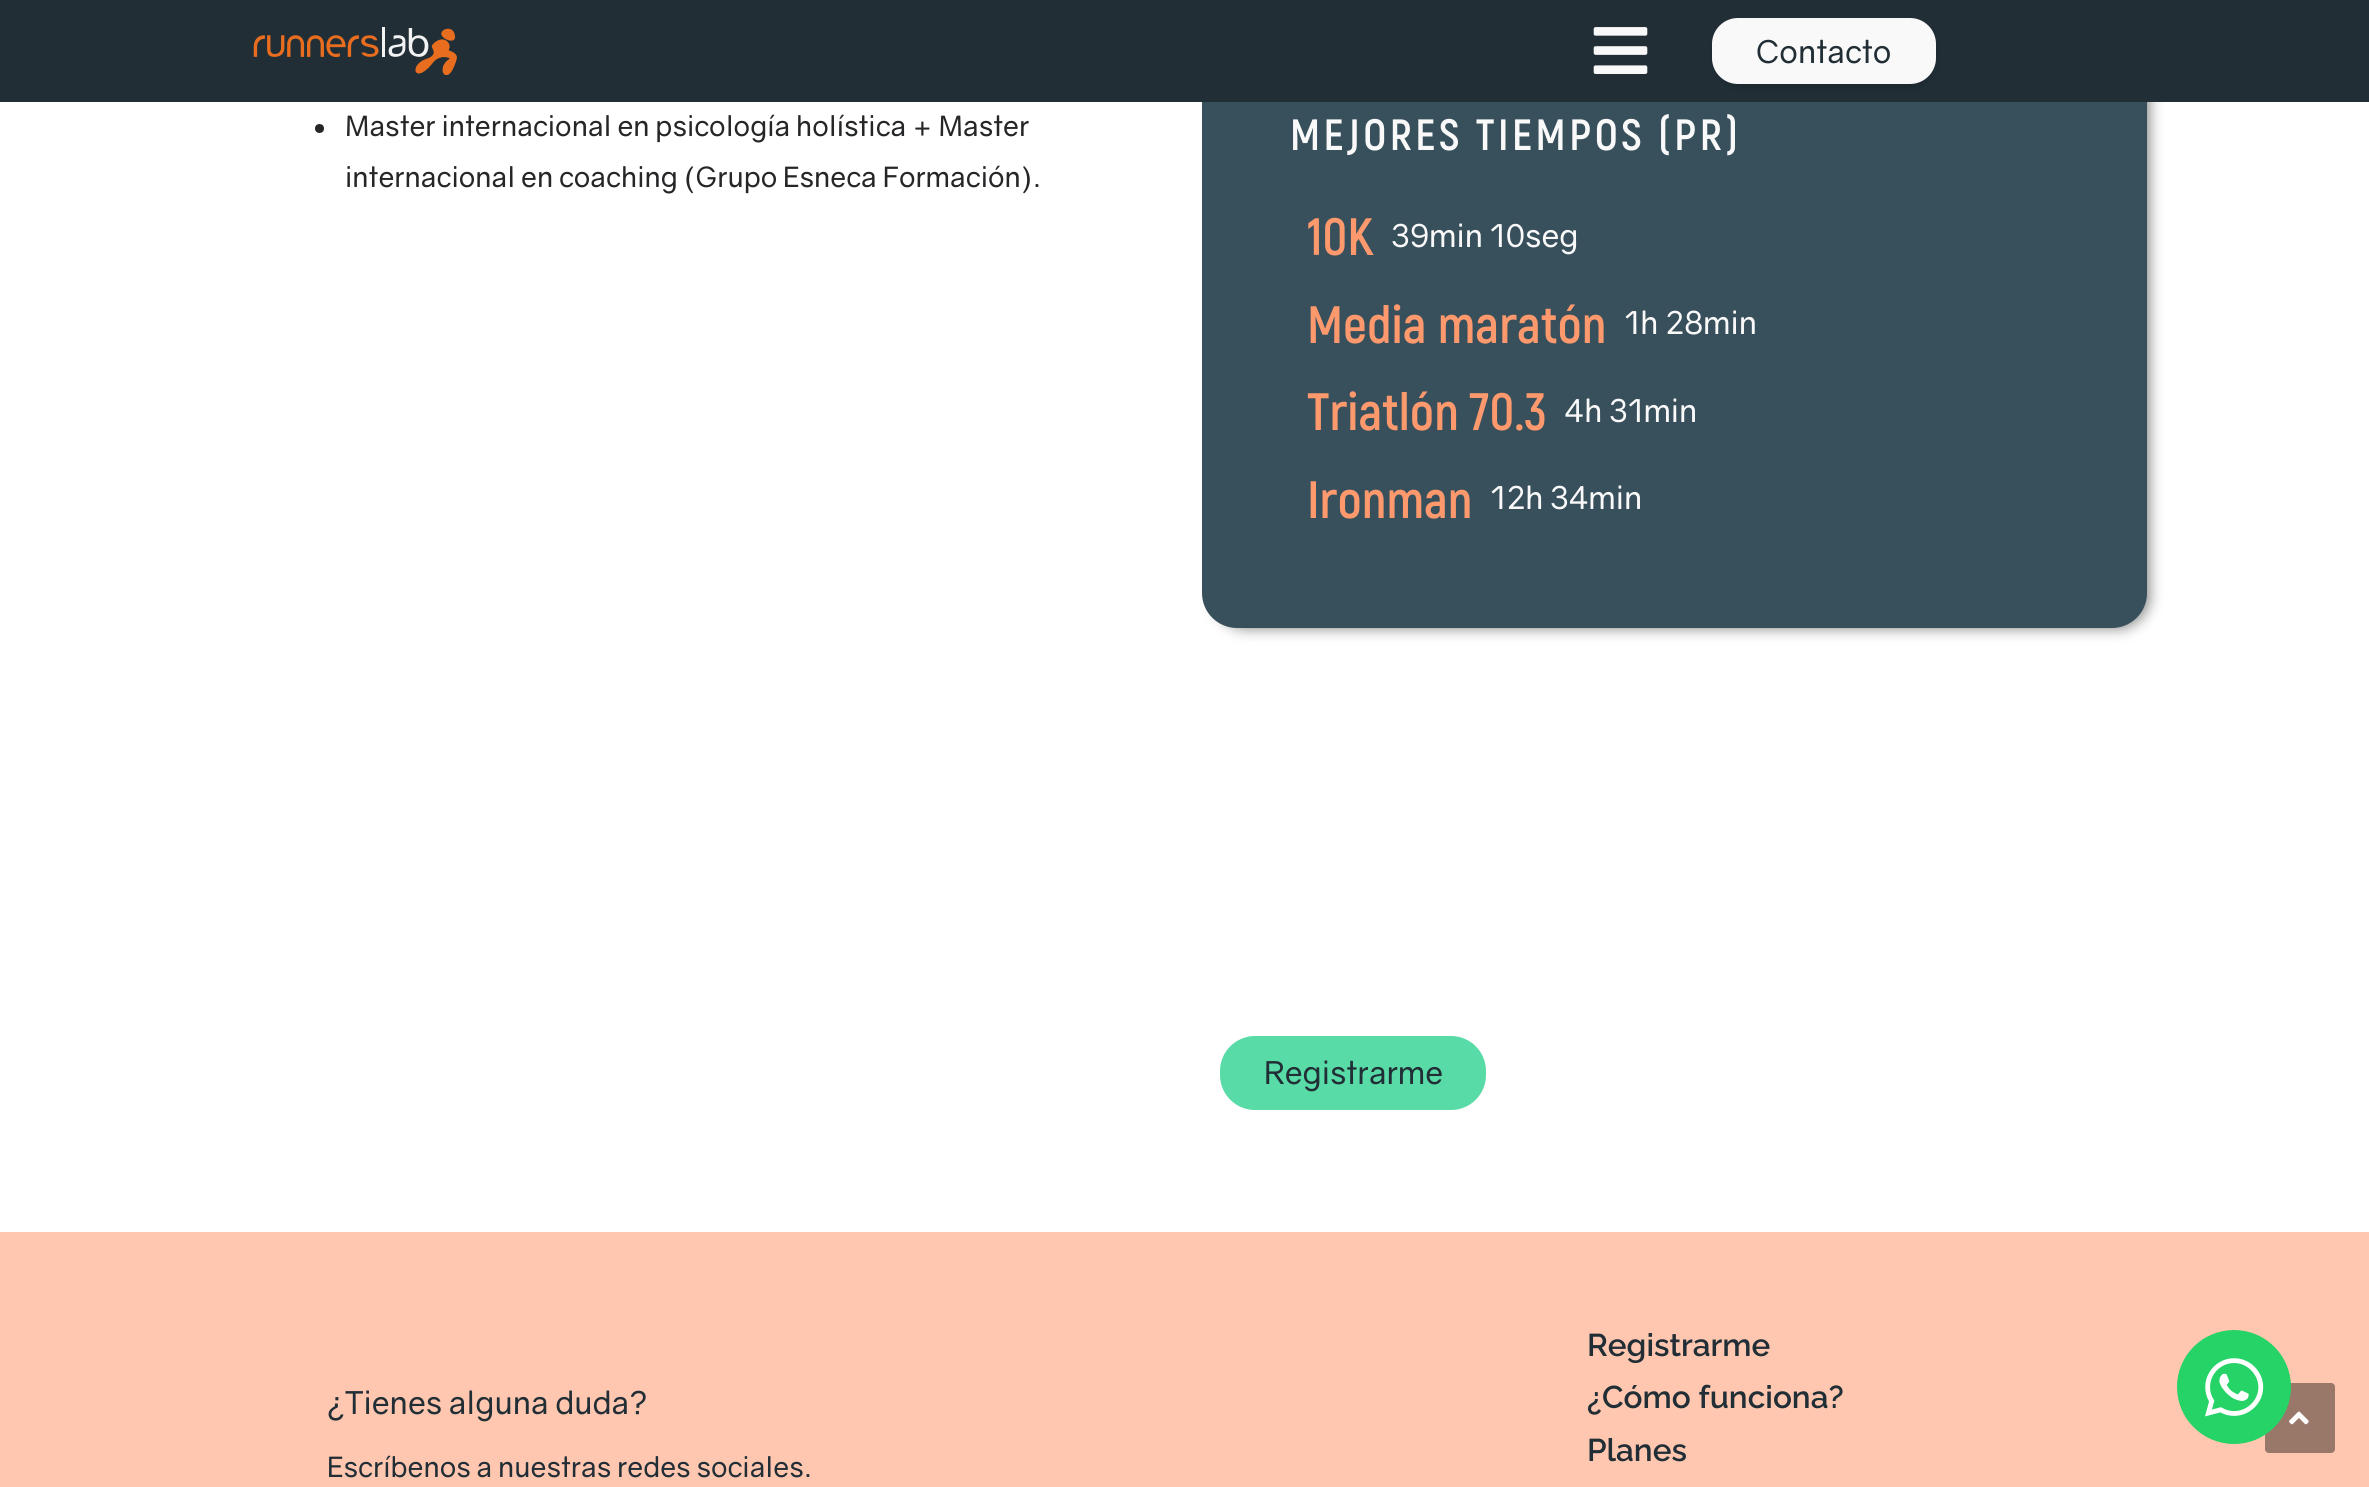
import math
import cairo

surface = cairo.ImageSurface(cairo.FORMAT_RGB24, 2369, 1487)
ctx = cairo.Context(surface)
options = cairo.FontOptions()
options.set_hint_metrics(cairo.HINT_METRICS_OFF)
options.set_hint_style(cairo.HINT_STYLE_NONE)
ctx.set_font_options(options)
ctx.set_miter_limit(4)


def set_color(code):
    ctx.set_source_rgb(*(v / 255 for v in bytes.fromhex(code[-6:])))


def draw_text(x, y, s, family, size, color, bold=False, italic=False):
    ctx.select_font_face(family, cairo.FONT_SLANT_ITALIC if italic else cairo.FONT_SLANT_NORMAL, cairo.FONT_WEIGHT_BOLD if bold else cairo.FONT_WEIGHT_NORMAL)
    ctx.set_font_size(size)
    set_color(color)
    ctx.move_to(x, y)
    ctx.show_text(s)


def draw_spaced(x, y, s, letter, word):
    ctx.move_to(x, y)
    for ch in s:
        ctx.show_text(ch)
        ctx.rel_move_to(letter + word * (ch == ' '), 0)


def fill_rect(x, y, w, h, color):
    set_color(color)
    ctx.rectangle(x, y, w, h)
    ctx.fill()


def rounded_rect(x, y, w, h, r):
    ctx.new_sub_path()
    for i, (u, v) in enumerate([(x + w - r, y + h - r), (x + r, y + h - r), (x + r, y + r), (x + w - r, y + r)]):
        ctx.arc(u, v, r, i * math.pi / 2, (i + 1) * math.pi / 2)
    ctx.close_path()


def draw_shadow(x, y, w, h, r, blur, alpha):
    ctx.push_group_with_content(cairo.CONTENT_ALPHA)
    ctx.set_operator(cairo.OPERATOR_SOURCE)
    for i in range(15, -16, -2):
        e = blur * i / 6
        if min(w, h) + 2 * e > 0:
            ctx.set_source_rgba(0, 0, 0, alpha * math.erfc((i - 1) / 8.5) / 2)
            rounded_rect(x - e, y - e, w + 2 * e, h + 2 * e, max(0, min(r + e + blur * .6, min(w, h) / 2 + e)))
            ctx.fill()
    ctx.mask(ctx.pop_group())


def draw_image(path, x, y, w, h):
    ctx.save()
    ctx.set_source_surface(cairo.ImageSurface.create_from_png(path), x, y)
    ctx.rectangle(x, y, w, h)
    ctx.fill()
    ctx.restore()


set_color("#ffffff")
ctx.paint()
set_color("#000000")
draw_shadow(1215, -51, 934, 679, 30, 7, 0.5)
set_color("#384f5c")
rounded_rect(1202, -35, 945, 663, 35)
ctx.fill()
fill_rect(0, 0, 2369, 102, "#212e36")
draw_image("assets/img1.png", 253, 27, 204, 49)
draw_image("assets/img2.png", 1593, 27, 55, 47)
set_color("#000000")
draw_shadow(1720, 28, 210, 53, 19, 6, 0.5)
set_color("#f9f9f9")
rounded_rect(1712, 18, 224, 66, 26)
ctx.fill()
draw_text(1756, 63, "Contacto", "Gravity", 31.5, "#212e36")
set_color("#252628")
ctx.new_path()
ctx.arc(319.5, 128.5, 4.5, 0, 2 * math.pi)
ctx.fill()
draw_text(345, 136, "Master internacional en psicología holística + Master", "Gravity", 28, "#252628")
draw_text(345, 187, "internacional en coaching (Grupo Esneca Formación).", "Gravity", 28, "#252628")
ctx.select_font_face("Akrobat", cairo.FONT_SLANT_NORMAL, cairo.FONT_WEIGHT_BOLD)
ctx.set_font_size(43.75)
set_color("#f9f9f9")
draw_spaced(1290, 150, "MEJORES TIEMPOS (PR)", 3.5, 0)
draw_text(1307, 255, "10K", "Akrobat", 52.5, "#fd996d", bold=True)
draw_text(1391, 247, "39min 10seg", "Gravity", 31.5, "#f9f9f9")
draw_text(1307, 343, "Media maratón", "Akrobat", 52.5, "#fd996d", bold=True)
draw_text(1624, 334, "1h 28min", "Gravity", 31.5, "#f9f9f9")
draw_text(1307, 430, "Triatlón 70.3", "Akrobat", 52.5, "#fd996d", bold=True)
draw_text(1564, 422, "4h 31min", "Gravity", 31.5, "#f9f9f9")
draw_text(1307, 518, "Ironman", "Akrobat", 52.5, "#fd996d", bold=True)
draw_text(1490, 509, "12h 34min", "Gravity", 31.5, "#f9f9f9")
set_color("#58dba6")
rounded_rect(1220, 1036, 266, 74, 35)
ctx.fill()
draw_text(1264, 1084, "Registrarme", "Gravity", 31.5, "#212e36")
fill_rect(0, 1232, 2369, 255, "#ffc7af")
draw_text(327, 1414, "¿Tienes alguna duda?", "Gravity", 31.5, "#212e36")
draw_text(327, 1477, "Escríbenos a nuestras redes sociales.", "Gravity", 28, "#212e36")
draw_text(1587, 1356, "Registrarme", "Raleway SemiBold", 31.5, "#212e36")
draw_text(1587, 1408, "¿Cómo funciona?", "Raleway SemiBold", 31.5, "#212e36")
draw_text(1587, 1461, "Planes", "Raleway SemiBold", 31.5, "#212e36")
set_color("#997769")
rounded_rect(2265, 1383, 70, 70, 4)
ctx.fill()
draw_image("assets/img4.png", 2289, 1411, 20, 14)
set_color("#25d366")
ctx.arc(2234, 1387, 57, 0, 2 * math.pi)
ctx.fill()
draw_image("assets/img3.png", 2205, 1358, 59, 59)
surface.write_to_png("output.png")
